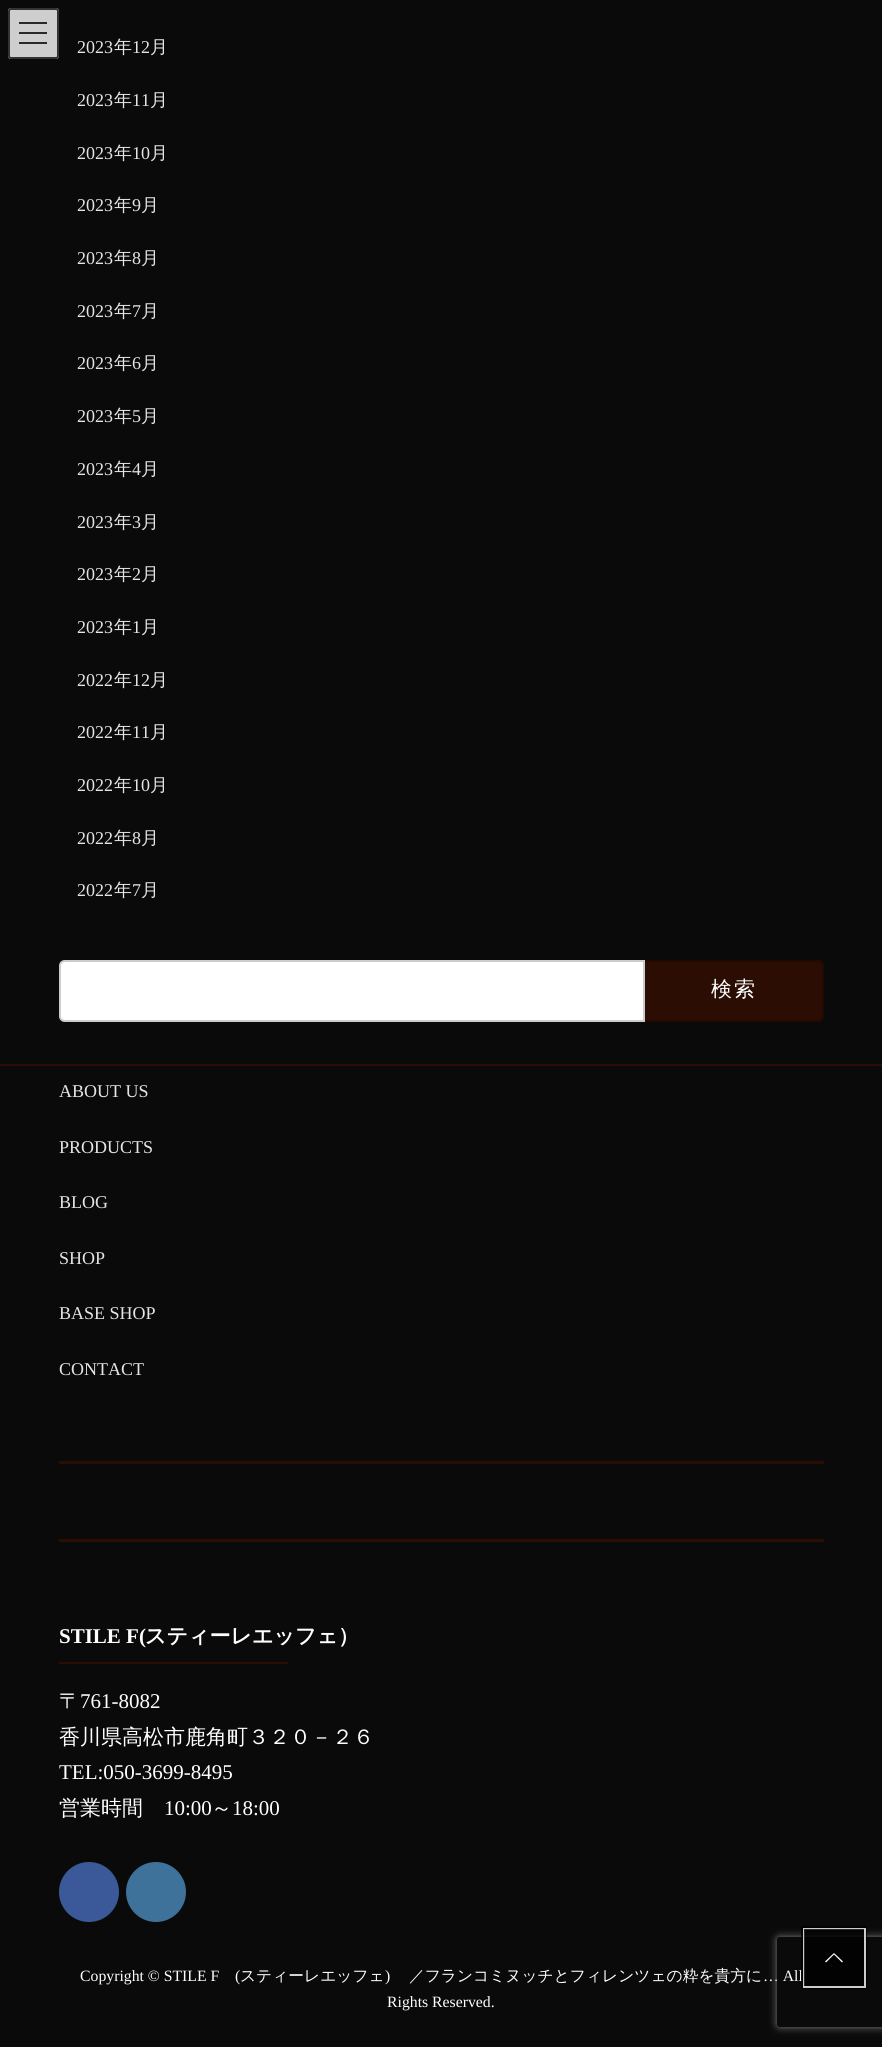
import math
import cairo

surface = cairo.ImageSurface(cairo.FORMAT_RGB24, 882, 2047)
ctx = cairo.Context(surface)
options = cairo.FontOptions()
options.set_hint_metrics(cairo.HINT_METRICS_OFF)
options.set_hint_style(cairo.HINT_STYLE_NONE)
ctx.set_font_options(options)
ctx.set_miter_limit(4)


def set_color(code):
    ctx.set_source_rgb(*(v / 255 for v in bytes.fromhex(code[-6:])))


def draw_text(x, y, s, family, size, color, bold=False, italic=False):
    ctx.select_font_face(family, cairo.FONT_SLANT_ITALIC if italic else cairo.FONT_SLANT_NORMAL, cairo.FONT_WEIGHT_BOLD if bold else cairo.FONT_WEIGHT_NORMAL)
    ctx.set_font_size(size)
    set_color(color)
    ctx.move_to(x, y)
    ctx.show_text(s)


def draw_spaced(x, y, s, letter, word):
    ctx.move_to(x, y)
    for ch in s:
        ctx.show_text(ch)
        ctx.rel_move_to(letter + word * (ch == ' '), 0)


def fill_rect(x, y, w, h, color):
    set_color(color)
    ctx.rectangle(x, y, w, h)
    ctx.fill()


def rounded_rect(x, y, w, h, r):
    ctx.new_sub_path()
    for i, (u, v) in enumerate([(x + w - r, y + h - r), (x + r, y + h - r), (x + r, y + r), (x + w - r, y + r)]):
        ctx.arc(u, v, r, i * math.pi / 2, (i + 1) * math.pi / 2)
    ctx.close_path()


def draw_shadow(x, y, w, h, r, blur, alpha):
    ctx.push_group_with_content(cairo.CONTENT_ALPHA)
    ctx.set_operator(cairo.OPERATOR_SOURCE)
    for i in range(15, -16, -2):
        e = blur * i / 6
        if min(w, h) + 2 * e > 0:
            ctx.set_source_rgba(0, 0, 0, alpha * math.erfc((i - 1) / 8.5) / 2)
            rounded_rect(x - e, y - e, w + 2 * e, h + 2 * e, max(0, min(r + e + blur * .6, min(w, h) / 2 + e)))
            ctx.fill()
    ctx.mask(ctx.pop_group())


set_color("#0a0a0a")
ctx.paint()
set_color("#cecece")
rounded_rect(8, 8, 51, 51, 3)
ctx.fill()
fill_rect(19, 22, 28, 2, "#292929")
fill_rect(19, 32, 28, 2, "#292929")
fill_rect(19, 42, 28, 2, "#292929")
rounded_rect(9, 9, 49, 49, 2)
set_color("#333333")
ctx.stroke()
draw_text(77, 53, "2023", "Liberation Serif", 18, "#e5e5e5")
draw_text(114, 53, "年", "WenQuanYi Zen Hei Medium", 18, "#e5e5e5")
draw_text(132, 53, "12", "Liberation Serif", 18, "#e5e5e5")
draw_text(150, 53, "月", "WenQuanYi Zen Hei Medium", 18, "#e5e5e5")
draw_text(77, 106, "2023", "Liberation Serif", 18, "#e5e5e5")
draw_text(114, 106, "年", "WenQuanYi Zen Hei Medium", 18, "#e5e5e5")
draw_text(132, 106, "11", "Liberation Serif", 18, "#e5e5e5")
draw_text(150, 106, "月", "WenQuanYi Zen Hei Medium", 18, "#e5e5e5")
draw_text(77, 159, "2023", "Liberation Serif", 18, "#e5e5e5")
draw_text(114, 159, "年", "WenQuanYi Zen Hei Medium", 18, "#e5e5e5")
draw_text(132, 159, "10", "Liberation Serif", 18, "#e5e5e5")
draw_text(150, 159, "月", "WenQuanYi Zen Hei Medium", 18, "#e5e5e5")
draw_text(77, 211, "2023", "Liberation Serif", 18, "#e5e5e5")
draw_text(114, 211, "年", "WenQuanYi Zen Hei Medium", 18, "#e5e5e5")
draw_text(132, 211, "9", "Liberation Serif", 18, "#e5e5e5")
draw_text(141, 211, "月", "WenQuanYi Zen Hei Medium", 18, "#e5e5e5")
draw_text(77, 264, "2023", "Liberation Serif", 18, "#e5e5e5")
draw_text(114, 264, "年", "WenQuanYi Zen Hei Medium", 18, "#e5e5e5")
draw_text(132, 264, "8", "Liberation Serif", 18, "#e5e5e5")
draw_text(141, 264, "月", "WenQuanYi Zen Hei Medium", 18, "#e5e5e5")
draw_text(77, 317, "2023", "Liberation Serif", 18, "#e5e5e5")
draw_text(114, 317, "年", "WenQuanYi Zen Hei Medium", 18, "#e5e5e5")
draw_text(132, 317, "7", "Liberation Serif", 18, "#e5e5e5")
draw_text(141, 317, "月", "WenQuanYi Zen Hei Medium", 18, "#e5e5e5")
draw_text(77, 369, "2023", "Liberation Serif", 18, "#e5e5e5")
draw_text(114, 369, "年", "WenQuanYi Zen Hei Medium", 18, "#e5e5e5")
draw_text(132, 369, "6", "Liberation Serif", 18, "#e5e5e5")
draw_text(141, 369, "月", "WenQuanYi Zen Hei Medium", 18, "#e5e5e5")
draw_text(77, 422, "2023", "Liberation Serif", 18, "#e5e5e5")
draw_text(114, 422, "年", "WenQuanYi Zen Hei Medium", 18, "#e5e5e5")
draw_text(132, 422, "5", "Liberation Serif", 18, "#e5e5e5")
draw_text(141, 422, "月", "WenQuanYi Zen Hei Medium", 18, "#e5e5e5")
draw_text(77, 475, "2023", "Liberation Serif", 18, "#e5e5e5")
draw_text(114, 475, "年", "WenQuanYi Zen Hei Medium", 18, "#e5e5e5")
draw_text(132, 475, "4", "Liberation Serif", 18, "#e5e5e5")
draw_text(141, 475, "月", "WenQuanYi Zen Hei Medium", 18, "#e5e5e5")
draw_text(77, 528, "2023", "Liberation Serif", 18, "#e5e5e5")
draw_text(114, 528, "年", "WenQuanYi Zen Hei Medium", 18, "#e5e5e5")
draw_text(132, 528, "3", "Liberation Serif", 18, "#e5e5e5")
draw_text(141, 528, "月", "WenQuanYi Zen Hei Medium", 18, "#e5e5e5")
draw_text(77, 580, "2023", "Liberation Serif", 18, "#e5e5e5")
draw_text(114, 580, "年", "WenQuanYi Zen Hei Medium", 18, "#e5e5e5")
draw_text(132, 580, "2", "Liberation Serif", 18, "#e5e5e5")
draw_text(141, 580, "月", "WenQuanYi Zen Hei Medium", 18, "#e5e5e5")
draw_text(77, 633, "2023", "Liberation Serif", 18, "#e5e5e5")
draw_text(114, 633, "年", "WenQuanYi Zen Hei Medium", 18, "#e5e5e5")
draw_text(132, 633, "1", "Liberation Serif", 18, "#e5e5e5")
draw_text(141, 633, "月", "WenQuanYi Zen Hei Medium", 18, "#e5e5e5")
draw_text(77, 686, "2022", "Liberation Serif", 18, "#e5e5e5")
draw_text(114, 686, "年", "WenQuanYi Zen Hei Medium", 18, "#e5e5e5")
draw_text(132, 686, "12", "Liberation Serif", 18, "#e5e5e5")
draw_text(150, 686, "月", "WenQuanYi Zen Hei Medium", 18, "#e5e5e5")
draw_text(77, 738, "2022", "Liberation Serif", 18, "#e5e5e5")
draw_text(114, 738, "年", "WenQuanYi Zen Hei Medium", 18, "#e5e5e5")
draw_text(132, 738, "11", "Liberation Serif", 18, "#e5e5e5")
draw_text(150, 738, "月", "WenQuanYi Zen Hei Medium", 18, "#e5e5e5")
draw_text(77, 791, "2022", "Liberation Serif", 18, "#e5e5e5")
draw_text(114, 791, "年", "WenQuanYi Zen Hei Medium", 18, "#e5e5e5")
draw_text(132, 791, "10", "Liberation Serif", 18, "#e5e5e5")
draw_text(150, 791, "月", "WenQuanYi Zen Hei Medium", 18, "#e5e5e5")
draw_text(77, 844, "2022", "Liberation Serif", 18, "#e5e5e5")
draw_text(114, 844, "年", "WenQuanYi Zen Hei Medium", 18, "#e5e5e5")
draw_text(132, 844, "8", "Liberation Serif", 18, "#e5e5e5")
draw_text(141, 844, "月", "WenQuanYi Zen Hei Medium", 18, "#e5e5e5")
draw_text(77, 896, "2022", "Liberation Serif", 18, "#e5e5e5")
draw_text(114, 896, "年", "WenQuanYi Zen Hei Medium", 18, "#e5e5e5")
draw_text(132, 896, "7", "Liberation Serif", 18, "#e5e5e5")
draw_text(141, 896, "月", "WenQuanYi Zen Hei Medium", 18, "#e5e5e5")
set_color("#ffffff")
ctx.new_path()
ctx.move_to(65, 960)
ctx.line_to(645, 960)
ctx.line_to(645, 1022)
ctx.line_to(65, 1022)
ctx.curve_to(61.5, 1022, 59, 1019.5, 59, 1016)
ctx.line_to(59, 966)
ctx.curve_to(59, 962.5, 61.5, 960, 65, 960)
ctx.close_path()
ctx.fill()
ctx.new_path()
ctx.move_to(65, 961)
ctx.line_to(644, 961)
ctx.line_to(644, 1021)
ctx.line_to(65, 1021)
ctx.curve_to(62, 1021, 60, 1019, 60, 1016)
ctx.line_to(60, 966)
ctx.curve_to(60, 963, 62, 961, 65, 961)
ctx.close_path()
ctx.set_source_rgba(0, 0, 0, 0.2)
ctx.stroke()
set_color("#2b0d03")
ctx.new_path()
ctx.move_to(645, 960)
ctx.line_to(818, 960)
ctx.curve_to(821.5, 960, 824, 962.5, 824, 966)
ctx.line_to(824, 1016)
ctx.curve_to(824, 1019.5, 821.5, 1022, 818, 1022)
ctx.line_to(645, 1022)
ctx.close_path()
ctx.fill()
ctx.set_source_rgba(0, 0, 0, 0.2)
ctx.set_fill_rule(cairo.FILL_RULE_EVEN_ODD)
ctx.new_path()
ctx.move_to(645, 960)
ctx.line_to(818, 960)
ctx.curve_to(821, 960, 824, 963, 824, 966)
ctx.line_to(824, 1016)
ctx.curve_to(824, 1019, 821, 1022, 818, 1022)
ctx.line_to(645, 1022)
ctx.close_path()
ctx.move_to(645, 962)
ctx.line_to(818, 962)
ctx.curve_to(820, 962, 822, 964, 822, 966)
ctx.line_to(822, 1016)
ctx.curve_to(822, 1018, 820, 1020, 818, 1020)
ctx.line_to(645, 1020)
ctx.close_path()
ctx.fill()
ctx.set_font_size(21)
set_color("#ffffff")
draw_spaced(711, 996, "検索", 2, 0)
fill_rect(0, 1064, 882, 2, "#2b0d03")
draw_text(59, 1097, "ABOUT US", "Liberation Serif", 18, "#e5e5e5")
draw_text(59, 1153, "PRODUCTS", "Liberation Serif", 18, "#e5e5e5")
draw_text(59, 1208, "BLOG", "Liberation Serif", 18, "#e5e5e5")
draw_text(59, 1264, "SHOP", "Liberation Serif", 18, "#e5e5e5")
draw_text(59, 1319, "BASE SHOP", "Liberation Serif", 18, "#e5e5e5")
draw_text(59, 1375, "CONTACT", "Liberation Serif", 18, "#e5e5e5")
fill_rect(59, 1461, 765, 3, "#2b0d03")
fill_rect(59, 1539, 765, 3, "#2b0d03")
draw_text(59, 1643, "STILE F(", "Liberation Serif", 21, "#ffffff", bold=True)
draw_text(145, 1643, "スティーレエッフェ）", "WenQuanYi Zen Hei", 21, "#ffffff", bold=True)
fill_rect(59, 1662, 229, 2, "#2b0d03")
draw_text(59, 1708, "〒", "WenQuanYi Zen Hei Medium", 21, "#ffffff")
draw_text(80, 1708, "761‐8082", "Liberation Serif", 21, "#ffffff")
draw_text(59, 1744, "香川県高松市鹿角町３２０－２６", "WenQuanYi Zen Hei Medium", 21, "#ffffff")
ctx.save()
ctx.set_fill_rule(cairo.FILL_RULE_WINDING)
ctx.rectangle(59, 1685, 765, 246)
ctx.clip()
draw_text(59, 1779, "TEL:050-3699-8495", "Liberation Serif", 21, "#ffffff")
ctx.restore()
draw_text(59, 1815, "営業時間", "WenQuanYi Zen Hei Medium", 21, "#ffffff")
draw_text(164, 1815, "10:00", "Liberation Serif", 21, "#ffffff")
draw_text(211, 1815, "～", "WenQuanYi Zen Hei Medium", 21, "#ffffff")
draw_text(232, 1815, "18:00", "Liberation Serif", 21, "#ffffff")
set_color("#3b5998")
ctx.new_path()
ctx.arc(89, 1892, 29, 0, 2 * math.pi)
ctx.fill_preserve()
ctx.stroke()
set_color("#3f729b")
ctx.arc(156, 1892, 29, 0, 2 * math.pi)
ctx.fill_preserve()
ctx.stroke()
draw_text(80, 1981, "Copyright © STILE F", "Liberation Serif", 15.75, "#ffffff")
draw_text(235, 1981, "(", "Liberation Serif", 15.75, "#ffffff")
draw_text(240, 1981, "スティーレエッフェ", "WenQuanYi Zen Hei Medium", 15.75, "#ffffff")
draw_text(385, 1981, ")", "Liberation Serif", 15.75, "#ffffff")
draw_text(409, 1981, "／フランコミヌッチとフィレンツェの粋を貴方に", "WenQuanYi Zen Hei Medium", 15.75, "#ffffff")
draw_text(763, 1981, "… All", "Liberation Serif", 15.75, "#ffffff")
draw_text(387, 2007, "Rights Reserved.", "Liberation Serif", 15.75, "#ffffff")
ctx.save()
ctx.new_path()
ctx.move_to(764, 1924)
ctx.line_to(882, 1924)
ctx.line_to(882, 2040)
ctx.line_to(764, 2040)
ctx.close_path()
ctx.move_to(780, 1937)
ctx.line_to(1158, 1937)
ctx.curve_to(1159.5, 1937, 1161, 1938.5, 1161, 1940)
ctx.line_to(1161, 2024)
ctx.curve_to(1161, 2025.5, 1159.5, 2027, 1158, 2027)
ctx.line_to(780, 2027)
ctx.curve_to(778.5, 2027, 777, 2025.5, 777, 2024)
ctx.line_to(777, 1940)
ctx.curve_to(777, 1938.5, 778.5, 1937, 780, 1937)
ctx.close_path()
ctx.clip()
set_color("#808080")
draw_shadow(777, 1937, 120, 90, 3, 4, 1)
ctx.restore()
ctx.rectangle(802.5, 1927.5, 63, 60)
ctx.set_source_rgba(0, 0, 0, 0.8)
ctx.set_line_width(3)
ctx.stroke()
ctx.rectangle(804, 1929, 61, 58)
ctx.set_source_rgba(1, 1, 1, 0.8)
ctx.set_line_width(2)
ctx.stroke()
ctx.set_source_rgba(0, 0, 0, 0.8)
ctx.rectangle(804, 1929, 60, 57)
ctx.fill()
set_color("#ffffff")
ctx.set_fill_rule(cairo.FILL_RULE_WINDING)
ctx.new_path()
ctx.move_to(843, 1961.5)
ctx.line_to(842, 1962.5)
ctx.line_to(834, 1954.5)
ctx.line_to(826, 1962.5)
ctx.line_to(825, 1961.5)
ctx.line_to(834, 1953)
ctx.close_path()
ctx.fill()
surface.write_to_png("output.png")
